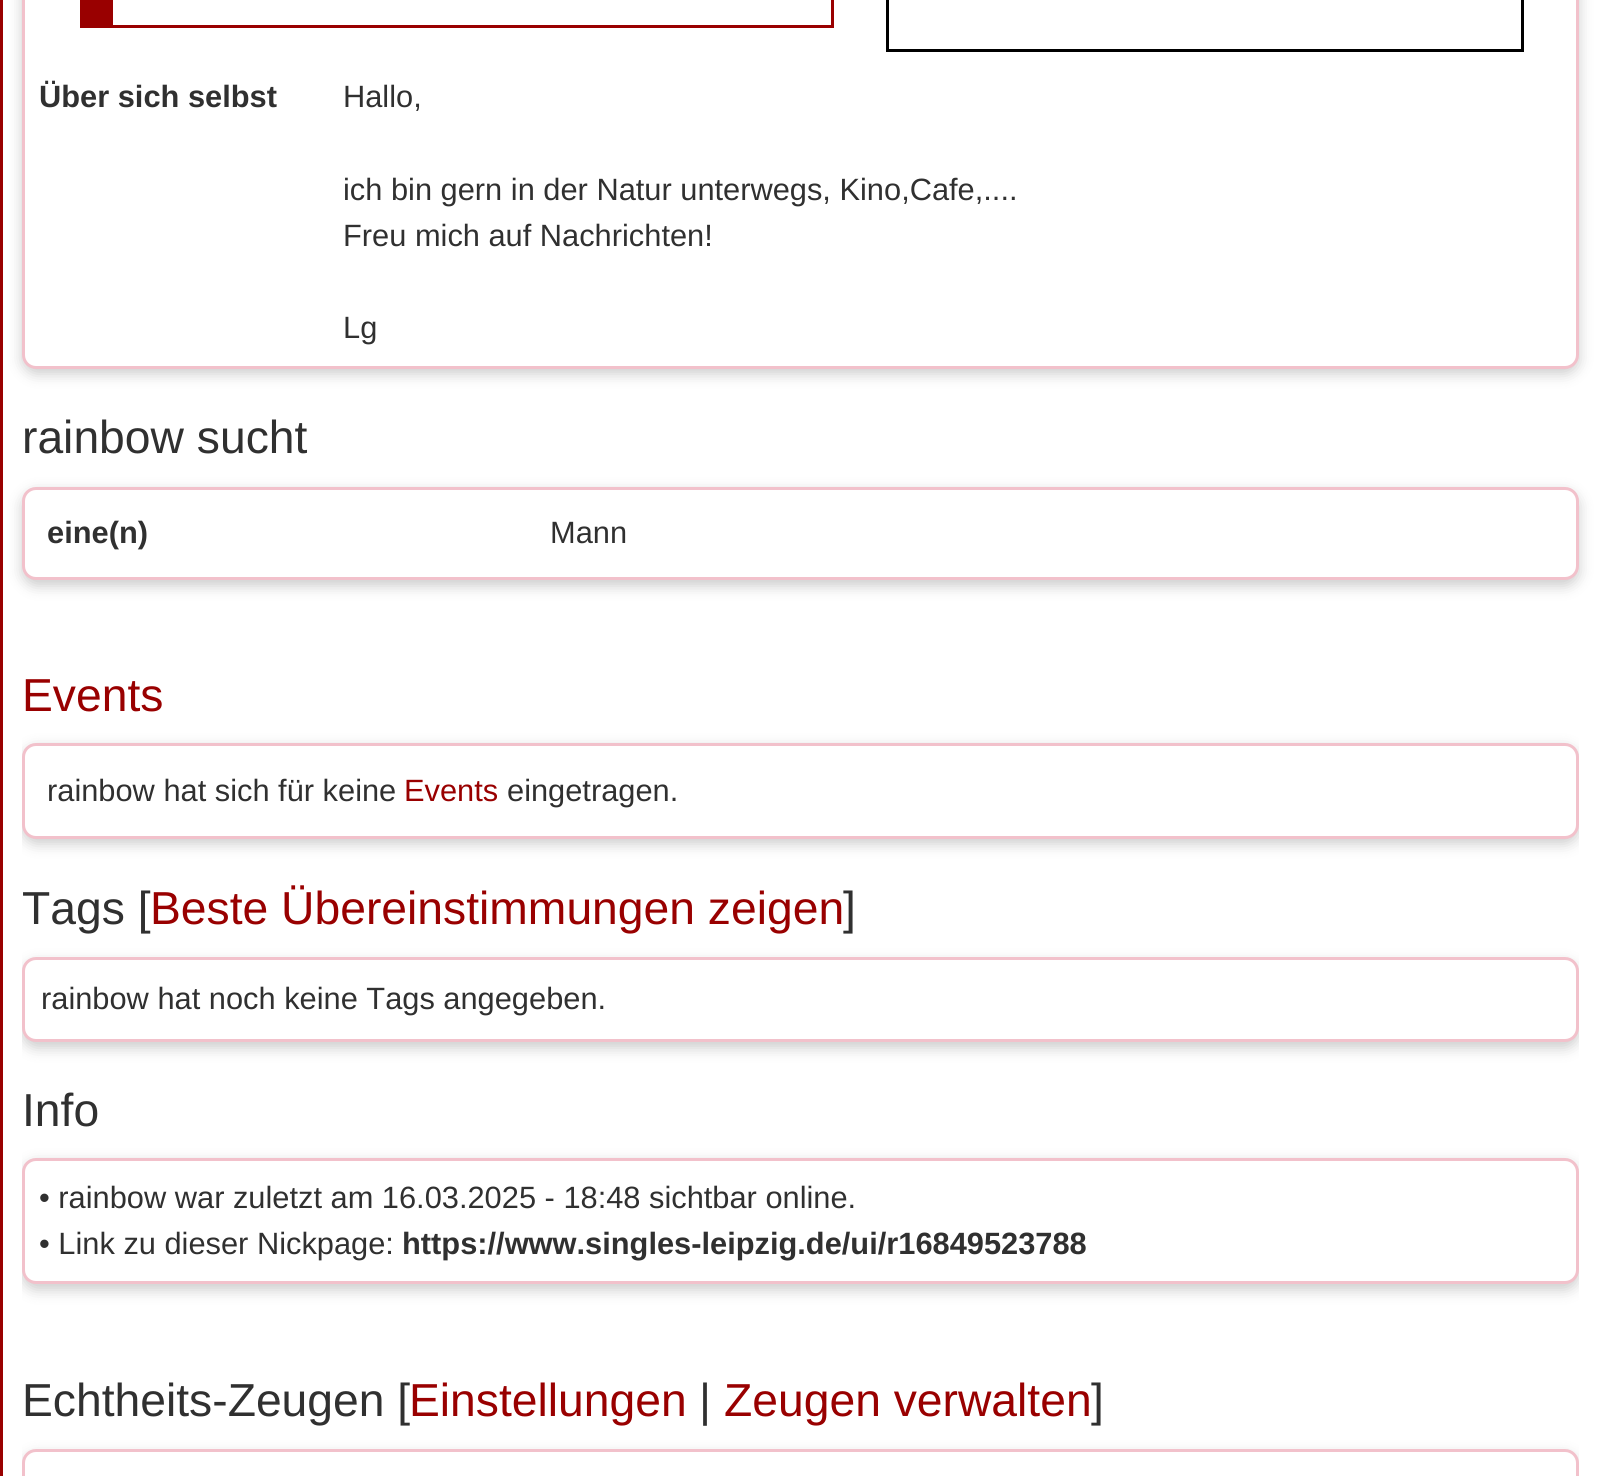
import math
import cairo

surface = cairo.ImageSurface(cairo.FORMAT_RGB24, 1598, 1476)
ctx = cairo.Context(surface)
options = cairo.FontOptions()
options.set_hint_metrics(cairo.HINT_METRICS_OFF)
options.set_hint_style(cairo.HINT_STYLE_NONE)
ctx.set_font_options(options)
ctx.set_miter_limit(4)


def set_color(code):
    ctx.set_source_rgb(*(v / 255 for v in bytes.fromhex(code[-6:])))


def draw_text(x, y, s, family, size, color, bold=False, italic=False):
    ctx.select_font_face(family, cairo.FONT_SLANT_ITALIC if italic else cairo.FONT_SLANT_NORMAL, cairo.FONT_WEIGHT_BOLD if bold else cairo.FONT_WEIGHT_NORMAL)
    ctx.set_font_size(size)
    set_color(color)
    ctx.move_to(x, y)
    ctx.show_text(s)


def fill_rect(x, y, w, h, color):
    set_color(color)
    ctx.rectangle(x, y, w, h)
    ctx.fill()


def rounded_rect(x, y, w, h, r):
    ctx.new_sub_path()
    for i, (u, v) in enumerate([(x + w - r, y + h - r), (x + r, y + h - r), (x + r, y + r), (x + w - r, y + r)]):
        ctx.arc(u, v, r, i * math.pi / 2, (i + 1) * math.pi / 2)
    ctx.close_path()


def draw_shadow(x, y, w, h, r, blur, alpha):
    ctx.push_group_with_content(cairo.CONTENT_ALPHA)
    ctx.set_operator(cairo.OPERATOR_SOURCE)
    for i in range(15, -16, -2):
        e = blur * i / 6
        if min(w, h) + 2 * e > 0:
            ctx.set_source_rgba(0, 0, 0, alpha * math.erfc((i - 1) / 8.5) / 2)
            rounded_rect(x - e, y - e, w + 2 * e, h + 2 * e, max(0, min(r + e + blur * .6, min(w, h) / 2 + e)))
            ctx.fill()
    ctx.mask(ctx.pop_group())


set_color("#990000")
ctx.paint()
fill_rect(3, 0, 1595, 1476, "#ffffff")
set_color("#000000")
draw_shadow(22, -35, 1557, 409, 14, 7, 0.2)
set_color("#ffffff")
rounded_rect(23.5, -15.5, 1554, 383, 12.5)
ctx.fill_preserve()
set_color("#f2c1cb")
ctx.set_line_width(3)
ctx.stroke()
fill_rect(831, 0, 3, 28, "#990000")
fill_rect(113, 25, 720, 3, "#990000")
fill_rect(80, 0, 33, 28, "#990000")
ctx.rectangle(887.5, -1.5, 635, 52)
set_color("#000000")
ctx.stroke()
draw_text(39, 107, "Über sich selbst", "Liberation Sans", 30.8, "#303030", bold=True)
draw_text(343, 107, "Hallo,", "Liberation Sans", 30.8, "#303030")
draw_text(343, 200, "ich bin gern in der Natur unterwegs, Kino,Cafe,....", "Liberation Sans", 30.8, "#303030")
draw_text(343, 246, "Freu mich auf Nachrichten!", "Liberation Sans", 30.8, "#303030")
draw_text(343, 338, "Lg", "Liberation Sans", 30.8, "#303030")
draw_text(22, 453, "rainbow sucht", "Liberation Sans", 46.25, "#303030")
set_color("#000000")
draw_shadow(22, 492, 1557, 94, 14, 7, 0.2)
set_color("#ffffff")
rounded_rect(23.5, 488.5, 1554, 90, 12.5)
ctx.fill_preserve()
set_color("#f2c1cb")
ctx.stroke()
draw_text(47, 543, "eine(n)", "Liberation Sans", 30.8, "#303030", bold=True)
draw_text(550, 543, "Mann", "Liberation Sans", 30.8, "#303030")
draw_text(22, 711, "Events", "Liberation Sans", 46.25, "#990000")
ctx.save()
ctx.rectangle(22, 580, 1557, 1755)
ctx.clip()
set_color("#000000")
draw_shadow(22, 748, 1557, 96, 14, 7, 0.2)
ctx.restore()
set_color("#ffffff")
rounded_rect(23.5, 744.5, 1554, 93, 12.5)
ctx.fill_preserve()
set_color("#f2c1cb")
ctx.stroke()
draw_text(47, 801, "rainbow hat sich für keine", "Liberation Sans", 30.8, "#303030")
draw_text(404, 801, "Events", "Liberation Sans", 30.8, "#990000")
draw_text(507, 801, "eingetragen.", "Liberation Sans", 30.8, "#303030")
draw_text(22, 924, "Tags [", "Liberation Sans", 46.25, "#303030")
draw_text(150, 924, "Beste Übereinstimmungen zeigen", "Liberation Sans", 46.25, "#990000")
draw_text(843, 924, "]", "Liberation Sans", 46.25, "#303030")
ctx.save()
ctx.rectangle(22, 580, 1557, 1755)
ctx.clip()
set_color("#000000")
draw_shadow(22, 963, 1557, 85, 14, 7, 0.2)
ctx.restore()
set_color("#ffffff")
rounded_rect(23.5, 958.5, 1554, 82, 12.5)
ctx.fill_preserve()
set_color("#f2c1cb")
ctx.stroke()
draw_text(41, 1009, "rainbow hat noch keine Tags angegeben.", "Liberation Sans", 30.8, "#303030")
draw_text(22, 1126, "Info", "Liberation Sans", 46.25, "#303030")
ctx.save()
ctx.rectangle(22, 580, 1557, 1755)
ctx.clip()
set_color("#000000")
draw_shadow(22, 1163, 1557, 127, 14, 7, 0.2)
ctx.restore()
set_color("#ffffff")
rounded_rect(23.5, 1159.5, 1554, 123, 12.5)
ctx.fill_preserve()
set_color("#f2c1cb")
ctx.stroke()
draw_text(39, 1208, "• rainbow war zuletzt am 16.03.2025 - 18:48 sichtbar online.", "Liberation Sans", 30.8, "#303030")
draw_text(39, 1254, "• Link zu dieser Nickpage:", "Liberation Sans", 30.8, "#303030")
draw_text(402, 1254, "https://www.singles-leipzig.de/ui/r16849523788", "Liberation Sans", 30.8, "#303030", bold=True)
draw_text(22, 1416, "Echtheits-Zeugen [", "Liberation Sans", 46.25, "#303030")
draw_text(409, 1416, "Einstellungen", "Liberation Sans", 46.25, "#990000")
draw_text(699, 1416, "|", "Liberation Sans", 46.25, "#303030")
draw_text(724, 1416, "Zeugen verwalten", "Liberation Sans", 46.25, "#990000")
draw_text(1091, 1416, "]", "Liberation Sans", 46.25, "#303030")
ctx.save()
ctx.rectangle(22, 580, 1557, 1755)
ctx.clip()
set_color("#000000")
draw_shadow(22, 1455, 1557, 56, 14, 7, 0.2)
ctx.restore()
set_color("#ffffff")
rounded_rect(23.5, 1450.5, 1554, 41, 12.5)
ctx.fill_preserve()
set_color("#f2c1cb")
ctx.stroke()
surface.write_to_png("output.png")
